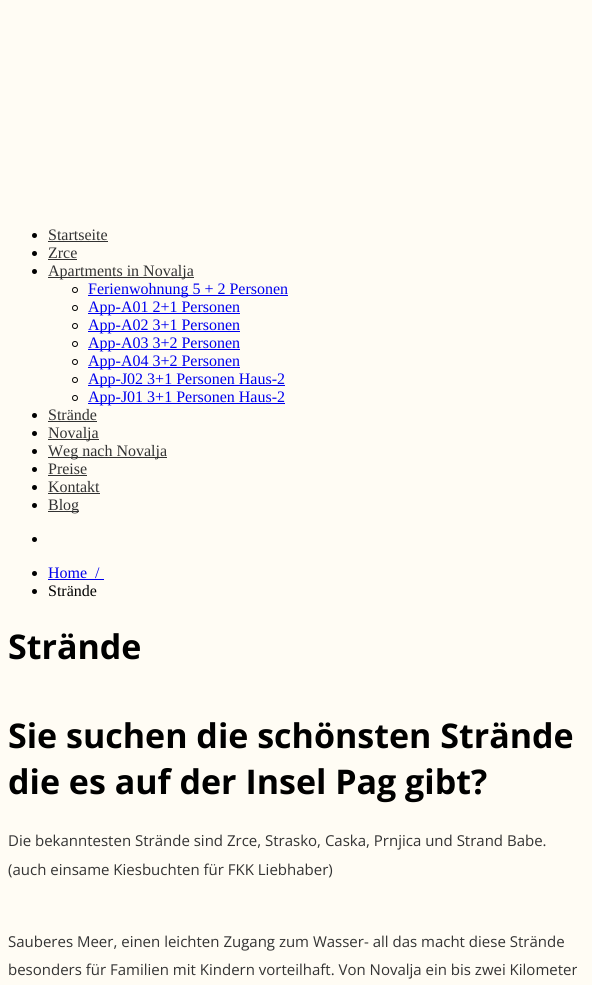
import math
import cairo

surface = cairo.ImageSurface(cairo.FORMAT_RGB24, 592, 985)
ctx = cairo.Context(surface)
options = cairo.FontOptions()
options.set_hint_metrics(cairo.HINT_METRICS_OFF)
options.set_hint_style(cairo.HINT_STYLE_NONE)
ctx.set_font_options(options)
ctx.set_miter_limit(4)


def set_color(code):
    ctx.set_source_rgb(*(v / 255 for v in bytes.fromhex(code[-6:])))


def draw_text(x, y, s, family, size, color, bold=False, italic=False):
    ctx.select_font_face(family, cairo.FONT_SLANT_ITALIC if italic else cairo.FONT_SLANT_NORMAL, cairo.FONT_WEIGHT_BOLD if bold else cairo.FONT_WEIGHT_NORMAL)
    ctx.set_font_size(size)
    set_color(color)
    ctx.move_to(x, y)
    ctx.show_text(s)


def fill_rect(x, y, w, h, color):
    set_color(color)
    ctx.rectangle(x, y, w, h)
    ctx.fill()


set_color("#fffcf4")
ctx.paint()
set_color("#000000")
ctx.arc(34.5, 235.5, 2.5, 0, 2 * math.pi)
ctx.fill()
draw_text(48, 240, "Startseite", "Liberation Serif", 16, "#333333")
fill_rect(48, 241, 60, 1, "#333333")
set_color("#000000")
ctx.new_path()
ctx.arc(34.5, 253.5, 2.5, 0, 2 * math.pi)
ctx.fill()
draw_text(48, 258, "Zrce", "Liberation Serif", 16, "#333333")
fill_rect(48, 259, 29, 1, "#333333")
set_color("#000000")
ctx.new_path()
ctx.arc(34.5, 271.5, 2.5, 0, 2 * math.pi)
ctx.fill()
fill_rect(48, 277, 146, 1, "#333333")
draw_text(48, 276, "Apartments in Novalja", "Liberation Serif", 16, "#333333")
ctx.new_path()
ctx.arc(75, 290, 2.5, 0, 2 * math.pi)
set_color("#000000")
ctx.set_line_width(1)
ctx.stroke()
fill_rect(88, 295, 200, 1, "#0000ee")
draw_text(88, 294, "Ferienwohnung 5 + 2 Personen", "Liberation Serif", 16, "#0000ee")
ctx.new_path()
ctx.arc(75, 308, 2.5, 0, 2 * math.pi)
set_color("#000000")
ctx.stroke()
fill_rect(88, 313, 152, 1, "#0000ee")
draw_text(88, 312, "App-A01 2+1 Personen", "Liberation Serif", 16, "#0000ee")
ctx.new_path()
ctx.arc(75, 326, 2.5, 0, 2 * math.pi)
set_color("#000000")
ctx.stroke()
fill_rect(88, 331, 152, 1, "#0000ee")
draw_text(88, 330, "App-A02 3+1 Personen", "Liberation Serif", 16, "#0000ee")
ctx.new_path()
ctx.arc(75, 344, 2.5, 0, 2 * math.pi)
set_color("#000000")
ctx.stroke()
fill_rect(88, 349, 152, 1, "#0000ee")
draw_text(88, 348, "App-A03 3+2 Personen", "Liberation Serif", 16, "#0000ee")
ctx.new_path()
ctx.arc(75, 362, 2.5, 0, 2 * math.pi)
set_color("#000000")
ctx.stroke()
fill_rect(88, 367, 152, 1, "#0000ee")
draw_text(88, 366, "App-A04 3+2 Personen", "Liberation Serif", 16, "#0000ee")
ctx.new_path()
ctx.arc(75, 380, 2.5, 0, 2 * math.pi)
set_color("#000000")
ctx.stroke()
fill_rect(88, 385, 197, 1, "#0000ee")
draw_text(88, 384, "App-J02 3+1 Personen Haus-2", "Liberation Serif", 16, "#0000ee")
ctx.new_path()
ctx.arc(75, 398, 2.5, 0, 2 * math.pi)
set_color("#000000")
ctx.stroke()
fill_rect(88, 403, 197, 1, "#0000ee")
draw_text(88, 402, "App-J01 3+1 Personen Haus-2", "Liberation Serif", 16, "#0000ee")
set_color("#000000")
ctx.new_path()
ctx.arc(34.5, 415.5, 2.5, 0, 2 * math.pi)
ctx.fill()
draw_text(48, 420, "Strände", "Liberation Serif", 16, "#333333")
fill_rect(48, 421, 49, 1, "#333333")
set_color("#000000")
ctx.new_path()
ctx.arc(34.5, 433.5, 2.5, 0, 2 * math.pi)
ctx.fill()
fill_rect(48, 439, 51, 1, "#333333")
draw_text(48, 438, "Novalja", "Liberation Serif", 16, "#333333")
set_color("#000000")
ctx.new_path()
ctx.arc(34.5, 451.5, 2.5, 0, 2 * math.pi)
ctx.fill()
fill_rect(48, 457, 119, 1, "#333333")
draw_text(48, 456, "Weg nach Novalja", "Liberation Serif", 16, "#333333")
set_color("#000000")
ctx.new_path()
ctx.arc(34.5, 469.5, 2.5, 0, 2 * math.pi)
ctx.fill()
draw_text(48, 474, "Preise", "Liberation Serif", 16, "#333333")
fill_rect(48, 475, 39, 1, "#333333")
set_color("#000000")
ctx.new_path()
ctx.arc(34.5, 487.5, 2.5, 0, 2 * math.pi)
ctx.fill()
draw_text(48, 492, "Kontakt", "Liberation Serif", 16, "#333333")
fill_rect(48, 493, 52, 1, "#333333")
set_color("#000000")
ctx.new_path()
ctx.arc(34.5, 505.5, 2.5, 0, 2 * math.pi)
ctx.fill()
fill_rect(48, 511, 31, 1, "#333333")
draw_text(48, 510, "Blog", "Liberation Serif", 16, "#333333")
set_color("#000000")
ctx.new_path()
ctx.arc(34.5, 539.5, 2.5, 0, 2 * math.pi)
ctx.fill()
ctx.arc(34.5, 573.5, 2.5, 0, 2 * math.pi)
ctx.fill()
draw_text(48, 578, "Home", "Liberation Serif", 16, "#0000ee")
fill_rect(48, 579, 56, 1, "#0000ee")
draw_text(95, 578, "/", "Liberation Serif", 16, "#0000ee")
set_color("#000000")
ctx.new_path()
ctx.arc(34.5, 591.5, 2.5, 0, 2 * math.pi)
ctx.fill()
draw_text(48, 596, "Strände", "Liberation Serif", 16, "#000000")
draw_text(8, 659, "Strände", "Open Sans", 34, "#000000", bold=True)
draw_text(8, 748, "Sie suchen die schönsten Strände", "Open Sans", 34, "#000000", bold=True)
draw_text(8, 794, "die es auf der Insel Pag gibt?", "Open Sans", 34, "#000000", bold=True)
draw_text(8, 846, "Die bekanntesten Strände sind Zrce, Strasko, Caska, Prnjica und Strand Babe.", "Open Sans", 15, "#333333")
draw_text(8, 875, "(auch einsame Kiesbuchten für FKK Liebhaber)", "Open Sans", 15, "#333333")
draw_text(8, 947, "Sauberes Meer, einen leichten Zugang zum Wasser- all das macht diese Strände", "Open Sans", 15, "#333333")
draw_text(8, 975, "besonders für Familien mit Kindern vorteilhaft. Von Novalja ein bis zwei Kilometer", "Open Sans", 15, "#333333")
surface.write_to_png("output.png")
